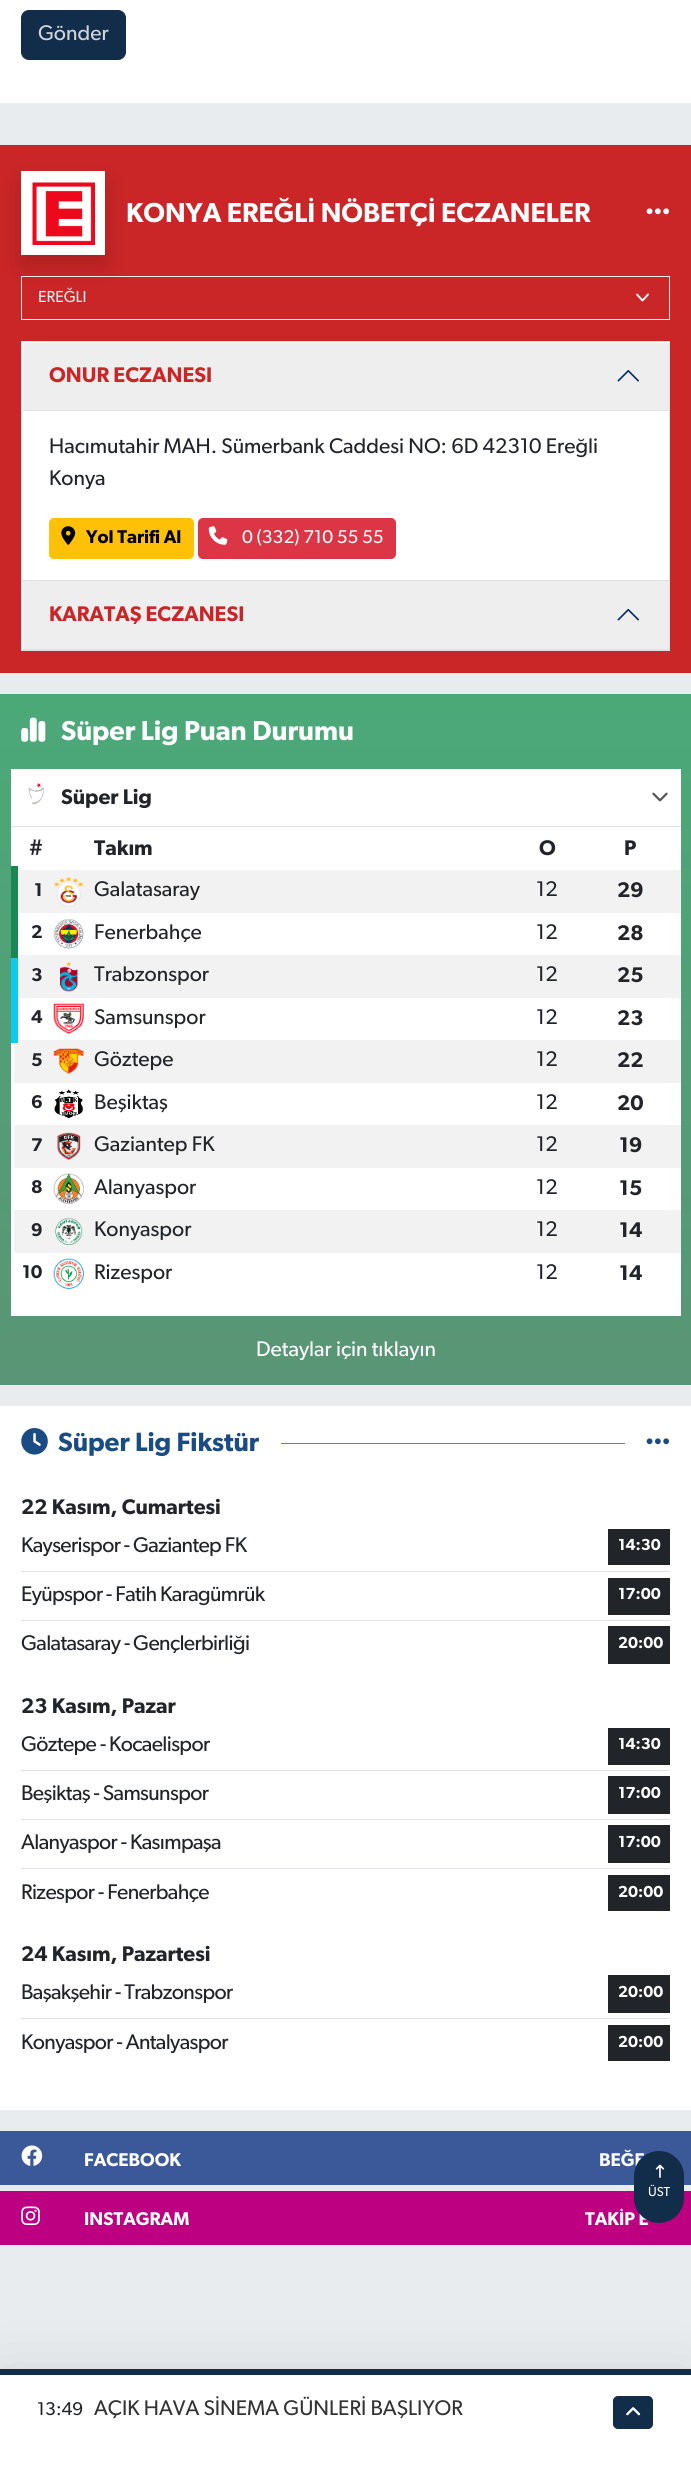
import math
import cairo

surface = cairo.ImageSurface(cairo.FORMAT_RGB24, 691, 2468)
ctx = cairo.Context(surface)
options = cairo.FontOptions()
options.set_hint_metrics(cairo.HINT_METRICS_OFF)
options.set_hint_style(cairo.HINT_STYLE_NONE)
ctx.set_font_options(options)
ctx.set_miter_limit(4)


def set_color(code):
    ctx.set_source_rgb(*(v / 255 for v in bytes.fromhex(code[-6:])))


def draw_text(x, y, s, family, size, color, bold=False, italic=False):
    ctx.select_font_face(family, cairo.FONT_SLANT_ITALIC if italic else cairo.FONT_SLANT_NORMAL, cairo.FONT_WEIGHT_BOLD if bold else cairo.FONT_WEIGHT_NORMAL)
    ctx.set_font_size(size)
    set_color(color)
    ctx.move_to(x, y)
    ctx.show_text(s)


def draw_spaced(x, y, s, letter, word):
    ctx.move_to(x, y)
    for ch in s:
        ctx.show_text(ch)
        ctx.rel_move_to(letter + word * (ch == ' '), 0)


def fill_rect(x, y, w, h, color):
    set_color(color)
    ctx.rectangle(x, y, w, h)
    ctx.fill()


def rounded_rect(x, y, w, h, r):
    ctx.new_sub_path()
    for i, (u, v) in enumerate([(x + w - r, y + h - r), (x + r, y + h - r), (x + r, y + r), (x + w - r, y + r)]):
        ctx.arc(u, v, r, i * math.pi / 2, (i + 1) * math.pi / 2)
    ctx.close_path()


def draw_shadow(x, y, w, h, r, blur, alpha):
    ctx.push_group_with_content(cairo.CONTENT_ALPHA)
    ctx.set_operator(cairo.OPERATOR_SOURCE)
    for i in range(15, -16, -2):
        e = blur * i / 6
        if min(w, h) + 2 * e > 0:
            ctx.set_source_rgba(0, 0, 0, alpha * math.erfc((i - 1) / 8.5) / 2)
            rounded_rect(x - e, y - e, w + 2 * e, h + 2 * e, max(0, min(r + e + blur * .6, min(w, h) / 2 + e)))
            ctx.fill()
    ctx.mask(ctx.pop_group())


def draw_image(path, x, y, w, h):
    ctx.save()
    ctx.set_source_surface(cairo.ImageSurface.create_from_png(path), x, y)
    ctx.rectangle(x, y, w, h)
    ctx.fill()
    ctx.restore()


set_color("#e9ecef")
ctx.paint()
fill_rect(0, 0, 691, 103, "#ffffff")
set_color("#122d4a")
rounded_rect(21.5, 10.5, 104, 49, 7.5)
ctx.fill_preserve()
ctx.set_line_width(1)
ctx.stroke()
draw_text(38, 40, "Gönder", "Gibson", 21.25, "#d0d5db")
fill_rect(0, 145, 691, 528, "#ca2527")
set_color("#000000")
draw_shadow(21, 183, 84, 83, 0, 10.5, 0.15)
fill_rect(21, 171, 84, 84, "#ffffff")
draw_image("assets/img1.png", 32, 182, 63, 63)
draw_text(126, 222, "KONYA EREĞLİ NÖBETÇİ ECZANELER", "Gibson SemiBold", 27.5, "#ffffff")
draw_image("assets/img2.png", 646, 208, 24, 7)
ctx.new_path()
ctx.move_to(637, 294.5)
ctx.line_to(642.5, 300.5)
ctx.line_to(648, 294.5)
ctx.set_line_width(1.9)
ctx.set_line_cap(cairo.LINE_CAP_ROUND)
ctx.set_line_join(cairo.LINE_JOIN_ROUND)
ctx.stroke()
ctx.rectangle(21.5, 276.5, 648, 43)
set_color("#efefef")
ctx.set_line_width(1)
ctx.set_line_cap(cairo.LINE_CAP_BUTT)
ctx.set_line_join(cairo.LINE_JOIN_MITER)
ctx.stroke()
draw_text(38, 302, "EREĞLI", "Gibson", 16, "#efefef")
set_color("#ffffff")
ctx.rectangle(21.5, 341.5, 648, 239)
ctx.fill_preserve()
set_color("#dee2e6")
ctx.stroke()
fill_rect(23, 343, 646, 67, "#eeeeee")
fill_rect(23, 410, 646, 1, "#dee2e6")
draw_text(49, 382, "ONUR ECZANESI", "Gibson SemiBold", 21.25, "#ca2527")
draw_image("assets/img3.png", 617, 370, 22, 12)
draw_text(49, 453, "Hacımutahir MAH. Sümerbank Caddesi NO: 6D 42310 Ereğli", "Gibson", 21.25, "#212529")
draw_text(49, 485, "Konya", "Gibson", 21.25, "#212529")
set_color("#ffc107")
rounded_rect(49.5, 518.5, 144, 40, 4.5)
ctx.fill_preserve()
ctx.stroke()
draw_image("assets/img4.png", 61, 526, 15, 19)
draw_text(86, 543, "Yol Tarifi Al", "Gibson SemiBold", 18.5, "#000000")
set_color("#dc3545")
rounded_rect(198.5, 518.5, 197, 40, 4.5)
ctx.fill_preserve()
ctx.stroke()
draw_image("assets/img5.png", 208, 526, 20, 19)
draw_text(242, 543, "0 (332) 710 55 55", "Gibson", 18.5, "#ffffff")
fill_rect(22, 581, 1, 69, "#ffffff")
fill_rect(669, 581, 1, 70, "#dee2e6")
fill_rect(21, 650, 649, 1, "#dee2e6")
fill_rect(21, 581, 1, 70, "#dee2e6")
fill_rect(23, 581, 646, 68, "#eeeeee")
fill_rect(23, 649, 646, 1, "#dee2e6")
draw_text(49, 621, "KARATAŞ ECZANESI", "Gibson SemiBold", 21.25, "#ca2527")
draw_image("assets/img6.png", 617, 608, 22, 13)
gradient = cairo.LinearGradient(346, 694, 346, 1385)
gradient.add_color_stop_rgba(0, 0.294, 0.663, 0.471, 1)
gradient.add_color_stop_rgba(1, 0.349, 0.584, 0.463, 1)
ctx.set_source(gradient)
ctx.rectangle(0, 694, 691, 691)
ctx.fill()
draw_image("assets/img7.png", 21, 717, 25, 25)
draw_text(61, 740, "Süper Lig Puan Durumu", "Gibson SemiBold", 27.5, "#ffffff")
fill_rect(11, 769, 670, 547, "#ffffff")
fill_rect(11, 826, 670, 1, "#dee2e6")
draw_image("assets/img8.png", 28, 783, 16, 22)
draw_text(61, 804, "Süper Lig", "Gibson SemiBold", 21.25, "#212529")
draw_image("assets/img9.png", 652, 792, 16, 10)
draw_text(29, 855, "#", "Gibson SemiBold", 21.25, "#212529")
draw_text(94, 855, "Takım", "Gibson SemiBold", 21.25, "#212529")
draw_text(539, 855, "O", "Gibson SemiBold", 21.25, "#212529")
draw_text(624, 855, "P", "Gibson SemiBold", 21.25, "#212529")
fill_rect(18, 870, 663, 43, "#f2f2f2")
draw_text(34, 896, "1", "Gibson SemiBold", 18.5, "#212529")
draw_image("assets/img10.png", 53, 877, 31, 30)
draw_text(94, 896, "Galatasaray", "Gibson", 21.25, "#212529")
draw_text(536, 896, "12", "Gibson", 21.25, "#212529")
draw_text(617, 897, "29", "Gibson SemiBold", 21.25, "#212529")
fill_rect(14, 1040, 667, 43, "#f2f2f2")
fill_rect(11, 951, 7, 92, "#0dcaf0")
fill_rect(11, 866, 7, 92, "#198754")
draw_text(31, 938, "2", "Gibson SemiBold", 18.5, "#212529")
draw_image("assets/img11.png", 53, 919, 31, 30)
draw_text(94, 939, "Fenerbahçe", "Gibson", 21.25, "#212529")
draw_text(536, 939, "12", "Gibson", 21.25, "#212529")
draw_text(617, 940, "28", "Gibson SemiBold", 21.25, "#212529")
fill_rect(18, 955, 663, 43, "#f2f2f2")
draw_text(31, 981, "3", "Gibson SemiBold", 18.5, "#212529")
draw_image("assets/img12.png", 60, 961, 18, 31)
draw_text(94, 981, "Trabzonspor", "Gibson", 21.25, "#212529")
draw_text(536, 981, "12", "Gibson", 21.25, "#212529")
draw_text(617, 982, "25", "Gibson SemiBold", 21.25, "#212529")
draw_text(31, 1023, "4", "Gibson SemiBold", 18.5, "#212529")
draw_image("assets/img13.png", 53, 1003, 31, 31)
draw_text(94, 1024, "Samsunspor", "Gibson", 21.25, "#212529")
draw_text(536, 1024, "12", "Gibson", 21.25, "#212529")
draw_text(617, 1025, "23", "Gibson SemiBold", 21.25, "#212529")
draw_text(31, 1066, "5", "Gibson SemiBold", 18.5, "#212529")
draw_image("assets/img14.png", 53, 1048, 31, 26)
draw_text(94, 1066, "Göztepe", "Gibson", 21.25, "#212529")
draw_text(536, 1066, "12", "Gibson", 21.25, "#212529")
draw_text(617, 1067, "22", "Gibson SemiBold", 21.25, "#212529")
draw_text(31, 1108, "6", "Gibson SemiBold", 18.5, "#212529")
draw_image("assets/img15.png", 54, 1089, 29, 30)
draw_text(94, 1109, "Beşiktaş", "Gibson", 21.25, "#212529")
draw_text(536, 1109, "12", "Gibson", 21.25, "#212529")
draw_text(617, 1110, "20", "Gibson SemiBold", 21.25, "#212529")
fill_rect(14, 1125, 667, 43, "#f2f2f2")
draw_text(31, 1151, "7", "Gibson SemiBold", 18.5, "#212529")
draw_image("assets/img16.png", 57, 1132, 24, 28)
draw_text(94, 1151, "Gaziantep FK", "Gibson", 21.25, "#212529")
draw_text(536, 1151, "12", "Gibson", 21.25, "#212529")
draw_text(619, 1152, "19", "Gibson SemiBold", 21.25, "#212529")
draw_text(31, 1193, "8", "Gibson SemiBold", 18.5, "#212529")
draw_image("assets/img17.png", 53, 1173, 31, 31)
draw_text(94, 1194, "Alanyaspor", "Gibson", 21.25, "#212529")
draw_text(536, 1194, "12", "Gibson", 21.25, "#212529")
draw_text(619, 1195, "15", "Gibson SemiBold", 21.25, "#212529")
fill_rect(14, 1210, 667, 43, "#f2f2f2")
draw_text(31, 1236, "9", "Gibson SemiBold", 18.5, "#212529")
draw_image("assets/img18.png", 55, 1217, 28, 28)
draw_text(94, 1236, "Konyaspor", "Gibson", 21.25, "#212529")
draw_text(536, 1236, "12", "Gibson", 21.25, "#212529")
draw_text(619, 1237, "14", "Gibson SemiBold", 21.25, "#212529")
draw_text(22, 1278, "10", "Gibson SemiBold", 18.5, "#212529")
draw_image("assets/img19.png", 53, 1258, 31, 31)
draw_text(94, 1279, "Rizespor", "Gibson", 21.25, "#212529")
draw_text(536, 1279, "12", "Gibson", 21.25, "#212529")
draw_text(619, 1280, "14", "Gibson SemiBold", 21.25, "#212529")
draw_text(256, 1356, "Detaylar için tıklayın", "Gibson", 21.25, "#ffffff")
fill_rect(0, 1406, 691, 704, "#ffffff")
draw_image("assets/img20.png", 21, 1428, 27, 27)
draw_text(58, 1451, "Süper Lig Fikstür", "Gibson SemiBold", 26.5, "#194c82")
fill_rect(281, 1443, 344, 1, "#5e82a8")
draw_image("assets/img21.png", 646, 1438, 24, 7)
draw_text(21, 1514, "22 Kasım, Cumartesi", "Gibson SemiBold", 21.25, "#212529")
fill_rect(21, 1571, 649, 1, "#dee2e6")
ctx.select_font_face("Gibson")
set_color("#212529")
draw_spaced(21, 1552, "Kayserispor - Gaziantep FK", -0.6, 0)
fill_rect(608, 1529, 62, 36, "#212529")
draw_text(618, 1550, "14:30", "Gibson SemiBold", 16, "#ffffff")
fill_rect(21, 1620, 649, 1, "#dee2e6")
ctx.select_font_face("Gibson")
ctx.set_font_size(21.25)
set_color("#212529")
draw_spaced(21, 1601, "Eyüpspor - Fatih Karagümrük", -0.6, 0)
fill_rect(608, 1578, 62, 37, "#212529")
draw_text(618, 1599, "17:00", "Gibson SemiBold", 16, "#ffffff")
ctx.select_font_face("Gibson")
ctx.set_font_size(21.25)
set_color("#212529")
draw_spaced(21, 1650, "Galatasaray - Gençlerbirliği", -0.6, 0)
fill_rect(608, 1626, 62, 38, "#212529")
draw_text(618, 1648, "20:00", "Gibson SemiBold", 16, "#ffffff")
draw_text(21, 1713, "23 Kasım, Pazar", "Gibson SemiBold", 21.25, "#212529")
fill_rect(21, 1770, 649, 1, "#dee2e6")
ctx.select_font_face("Gibson")
set_color("#212529")
draw_spaced(21, 1751, "Göztepe - Kocaelispor", -0.6, 0)
fill_rect(608, 1728, 62, 37, "#212529")
draw_text(618, 1749, "14:30", "Gibson SemiBold", 16, "#ffffff")
fill_rect(21, 1819, 649, 1, "#dee2e6")
ctx.select_font_face("Gibson")
ctx.set_font_size(21.25)
set_color("#212529")
draw_spaced(21, 1800, "Beşiktaş - Samsunspor", -0.6, 0)
fill_rect(608, 1776, 62, 38, "#212529")
draw_text(618, 1798, "17:00", "Gibson SemiBold", 16, "#ffffff")
fill_rect(21, 1868, 649, 1, "#dee2e6")
ctx.select_font_face("Gibson")
ctx.set_font_size(21.25)
set_color("#212529")
draw_spaced(21, 1849, "Alanyaspor - Kasımpaşa", -0.6, 0)
fill_rect(608, 1825, 62, 38, "#212529")
draw_text(618, 1847, "17:00", "Gibson SemiBold", 16, "#ffffff")
ctx.select_font_face("Gibson")
ctx.set_font_size(21.25)
set_color("#212529")
draw_spaced(21, 1899, "Rizespor - Fenerbahçe", -0.6, 0)
fill_rect(608, 1875, 62, 36, "#212529")
draw_text(618, 1897, "20:00", "Gibson SemiBold", 16, "#ffffff")
draw_text(21, 1961, "24 Kasım, Pazartesi", "Gibson SemiBold", 21.25, "#212529")
fill_rect(21, 2018, 649, 1, "#dee2e6")
ctx.select_font_face("Gibson")
set_color("#212529")
draw_spaced(21, 1999, "Başakşehir - Trabzonspor", -0.6, 0)
fill_rect(608, 1975, 62, 38, "#212529")
draw_text(618, 1997, "20:00", "Gibson SemiBold", 16, "#ffffff")
ctx.select_font_face("Gibson")
ctx.set_font_size(21.25)
set_color("#212529")
draw_spaced(21, 2049, "Konyaspor - Antalyaspor", -0.6, 0)
fill_rect(608, 2025, 62, 36, "#212529")
draw_text(618, 2047, "20:00", "Gibson SemiBold", 16, "#ffffff")
fill_rect(0, 2131, 691, 54, "#3b5998")
draw_image("assets/img22.png", 21, 2145, 22, 21)
draw_text(84, 2166, "FACEBOOK", "Gibson SemiBold", 18.5, "#ffffff")
draw_text(599, 2166, "BEĞE", "Gibson SemiBold", 18.5, "#ffffff")
fill_rect(0, 2191, 691, 54, "#bd0082")
draw_image("assets/img23.png", 21, 2206, 19, 20)
draw_text(84, 2225, "INSTAGRAM", "Gibson SemiBold", 18.5, "#ffffff")
draw_text(585, 2225, "TAKİP E", "Gibson SemiBold", 18.5, "#ffffff")
set_color("#122d4a")
rounded_rect(634, 2151, 50, 72, 25)
ctx.fill()
draw_image("assets/img24.png", 655, 2164, 10, 14)
draw_text(648, 2196, "ÜST", "Gibson", 13, "#ffffff")
set_color("#000000")
draw_shadow(0, 2390, 691, 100, 0, 32, 0.18)
fill_rect(0, 2375, 691, 93, "#ffffff")
fill_rect(0, 2369, 691, 6, "#122d4a")
draw_text(37, 2415, "13:49", "Gibson", 18.5, "#212529")
draw_text(94, 2415, "AÇIK HAVA SİNEMA GÜNLERİ BAŞLIYOR", "Gibson", 21.25, "#333333")
set_color("#122d4a")
rounded_rect(613.5, 2396.5, 39, 32, 4.5)
ctx.fill_preserve()
ctx.stroke()
draw_image("assets/img25.png", 626, 2407, 15, 9)
surface.write_to_png("output.png")
